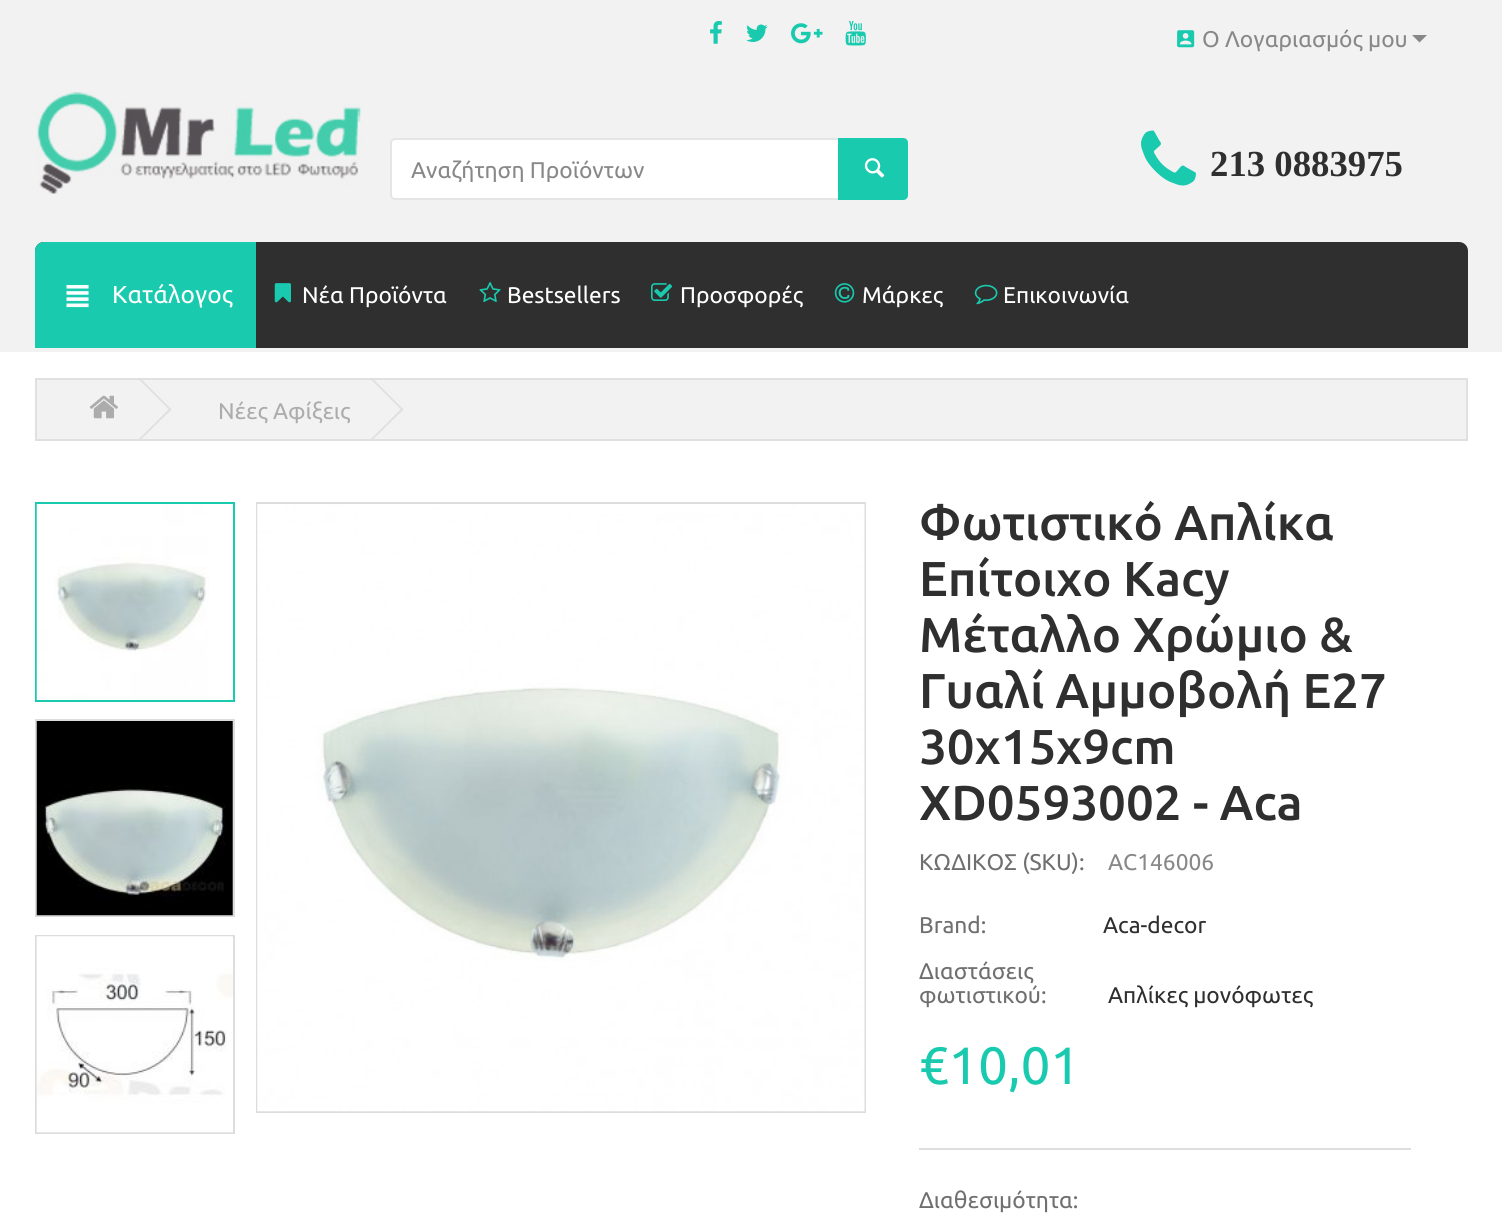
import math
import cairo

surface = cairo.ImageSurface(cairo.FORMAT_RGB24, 1502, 1224)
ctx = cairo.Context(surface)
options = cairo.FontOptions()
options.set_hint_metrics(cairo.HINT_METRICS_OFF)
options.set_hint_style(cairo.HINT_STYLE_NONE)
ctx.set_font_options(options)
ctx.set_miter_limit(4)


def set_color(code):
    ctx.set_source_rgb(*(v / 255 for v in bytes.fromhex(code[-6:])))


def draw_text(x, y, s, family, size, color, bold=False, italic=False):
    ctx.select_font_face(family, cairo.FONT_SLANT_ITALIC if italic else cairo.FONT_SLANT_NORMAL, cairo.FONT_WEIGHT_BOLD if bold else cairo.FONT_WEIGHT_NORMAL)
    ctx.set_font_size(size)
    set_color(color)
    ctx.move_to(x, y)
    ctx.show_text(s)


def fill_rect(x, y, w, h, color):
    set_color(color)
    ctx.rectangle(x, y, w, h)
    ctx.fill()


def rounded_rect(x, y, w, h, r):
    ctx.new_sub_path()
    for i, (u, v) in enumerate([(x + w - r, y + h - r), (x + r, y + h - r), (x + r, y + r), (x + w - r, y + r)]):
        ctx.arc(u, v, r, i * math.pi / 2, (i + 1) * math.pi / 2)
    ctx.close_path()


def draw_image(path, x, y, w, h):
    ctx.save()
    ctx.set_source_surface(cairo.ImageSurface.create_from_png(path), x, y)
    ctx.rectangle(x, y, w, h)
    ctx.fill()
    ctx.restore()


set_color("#ffffff")
ctx.paint()
fill_rect(0, 0, 1502, 352, "#f2f2f2")
draw_image("assets/img1.png", 710, 21, 12, 23)
draw_image("assets/img2.png", 746, 24, 22, 18)
draw_image("assets/img3.png", 791, 23, 32, 21)
draw_image("assets/img4.png", 845, 21, 21, 25)
draw_image("assets/img5.png", 1177, 30, 18, 18)
draw_text(1202, 47, "Ο Λογαριασμός μου", "Ubuntu", 22.75, "#888888")
ctx.new_path()
ctx.move_to(1419.5, 42.5)
ctx.line_to(1412, 35)
ctx.line_to(1427, 35)
ctx.close_path()
ctx.fill()
draw_image("assets/img6.png", 35, 91, 327, 103)
set_color("#ffffff")
rounded_rect(391, 139, 516, 60, 4)
ctx.fill_preserve()
set_color("#e5e5e5")
ctx.stroke()
ctx.save()
ctx.rectangle(411, 158, 333, 24)
ctx.clip()
draw_text(411, 178, "Αναζήτηση Προϊόντων", "Ubuntu", 22.75, "#888888")
ctx.restore()
set_color("#19caaf")
ctx.new_path()
ctx.move_to(838, 138)
ctx.line_to(903, 138)
ctx.curve_to(906, 138, 908, 140, 908, 143)
ctx.line_to(908, 195)
ctx.curve_to(908, 198, 906, 200, 903, 200)
ctx.line_to(838, 200)
ctx.close_path()
ctx.fill()
draw_image("assets/img7.png", 864, 158, 21, 20)
draw_image("assets/img8.png", 1141, 130, 55, 56)
draw_text(1210, 176, "213 0883975", "Liberation Serif", 36.75, "#2f2f2f", bold=True)
ctx.new_path()
ctx.move_to(44, 242)
ctx.line_to(1459, 242)
ctx.curve_to(1464, 242, 1468, 246, 1468, 251)
ctx.line_to(1468, 348)
ctx.line_to(35, 348)
ctx.line_to(35, 251)
ctx.curve_to(35, 246, 39, 242, 44, 242)
ctx.close_path()
ctx.fill()
set_color("#19caaf")
ctx.new_path()
ctx.move_to(44, 242)
ctx.line_to(256, 242)
ctx.line_to(256, 348)
ctx.line_to(35, 348)
ctx.line_to(35, 251)
ctx.curve_to(35, 246, 39, 242, 44, 242)
ctx.close_path()
ctx.fill()
draw_image("assets/img9.png", 66, 285, 23, 23)
draw_text(112, 303, "Κατάλογος", "Ubuntu", 24.5, "#ffffff")
draw_image("assets/img10.png", 274, 283, 17, 20)
draw_text(302, 303, "Νέα Προϊόντα", "Ubuntu", 22.75, "#ffffff")
draw_image("assets/img11.png", 479, 282, 22, 20)
draw_text(507, 303, "Bestsellers", "Ubuntu", 22.75, "#ffffff")
draw_image("assets/img12.png", 651, 283, 22, 18)
draw_text(680, 303, "Προσφορές", "Ubuntu", 22.75, "#ffffff")
draw_image("assets/img13.png", 834, 283, 21, 20)
draw_text(862, 303, "Μάρκες", "Ubuntu", 22.75, "#ffffff")
draw_image("assets/img14.png", 974, 284, 24, 21)
draw_text(1003, 303, "Επικοινωνία", "Ubuntu", 22.75, "#ffffff")
set_color("#f2f2f2")
ctx.rectangle(36, 379, 1431, 61)
ctx.fill_preserve()
set_color("#e1e0e0")
ctx.stroke()
draw_image("assets/img15.png", 89, 395, 29, 24)
ctx.new_path()
ctx.move_to(139, 379.5)
ctx.line_to(140.5, 378.5)
ctx.line_to(171.5, 409.5)
ctx.line_to(170, 410.5)
ctx.close_path()
ctx.fill()
ctx.new_path()
ctx.move_to(139, 439)
ctx.line_to(170, 408)
ctx.line_to(171.5, 409.5)
ctx.line_to(140.5, 440)
ctx.close_path()
ctx.fill()
draw_text(218, 419, "Νέες Αφίξεις", "Ubuntu", 22.75, "#acacac")
set_color("#e1e0e0")
ctx.new_path()
ctx.move_to(371, 379.5)
ctx.line_to(372.5, 378.5)
ctx.line_to(403.5, 409.5)
ctx.line_to(402, 410.5)
ctx.close_path()
ctx.fill()
ctx.new_path()
ctx.move_to(371, 439)
ctx.line_to(402, 408)
ctx.line_to(403.5, 409.5)
ctx.line_to(372.5, 440)
ctx.close_path()
ctx.fill()
ctx.rectangle(36, 503, 198, 198)
set_color("#19caaf")
ctx.stroke()
draw_image("assets/img16.png", 36, 504, 173, 196)
ctx.rectangle(36, 720, 198, 196)
set_color("#dddddd")
ctx.stroke()
draw_image("assets/img17.png", 36, 721, 197, 195)
ctx.rectangle(36, 936, 198, 197)
ctx.stroke()
draw_image("assets/img18.png", 36, 936, 197, 197)
ctx.rectangle(257, 503, 608, 609)
ctx.stroke()
draw_image("assets/img19.png", 257, 504, 608, 608)
draw_text(919, 540, "Φωτιστικό Απλίκα", "Ubuntu Medium", 49, "#2f2f2f")
draw_text(919, 596, "Επίτοιχο Kacy", "Ubuntu Medium", 49, "#2f2f2f")
draw_text(919, 652, "Μέταλλο Χρώμιο &", "Ubuntu Medium", 49, "#2f2f2f")
draw_text(919, 708, "Γυαλί Αμμοβολή E27", "Ubuntu Medium", 49, "#2f2f2f")
draw_text(919, 764, "30x15x9cm", "Ubuntu Medium", 49, "#2f2f2f")
draw_text(919, 820, "XD0593002 - Aca", "Ubuntu Medium", 49, "#2f2f2f")
draw_text(919, 870, "ΚΩΔΙΚΟΣ (SKU):", "Ubuntu", 22.75, "#6f6f6f")
draw_text(1108, 870, "AC146006", "Ubuntu", 22.75, "#888888")
draw_text(919, 933, "Brand:", "Ubuntu", 22.75, "#6f6f6f")
draw_text(1103, 933, "Aca-decor", "Ubuntu", 22.75, "#2f2f2f")
draw_text(919, 979, "Διαστάσεις", "Ubuntu", 22.75, "#6f6f6f")
draw_text(919, 1003, "φωτιστικού:", "Ubuntu", 22.75, "#6f6f6f")
draw_text(1108, 1003, "Απλίκες μονόφωτες", "Ubuntu", 22.75, "#2f2f2f")
draw_text(919, 1084, "€10,01", "Ubuntu", 52.5, "#19caaf")
fill_rect(919, 1148, 492, 2, "#dddfdf")
draw_text(919, 1208, "Διαθεσιμότητα:", "Ubuntu", 22.75, "#6f6f6f")
surface.write_to_png("output.png")
